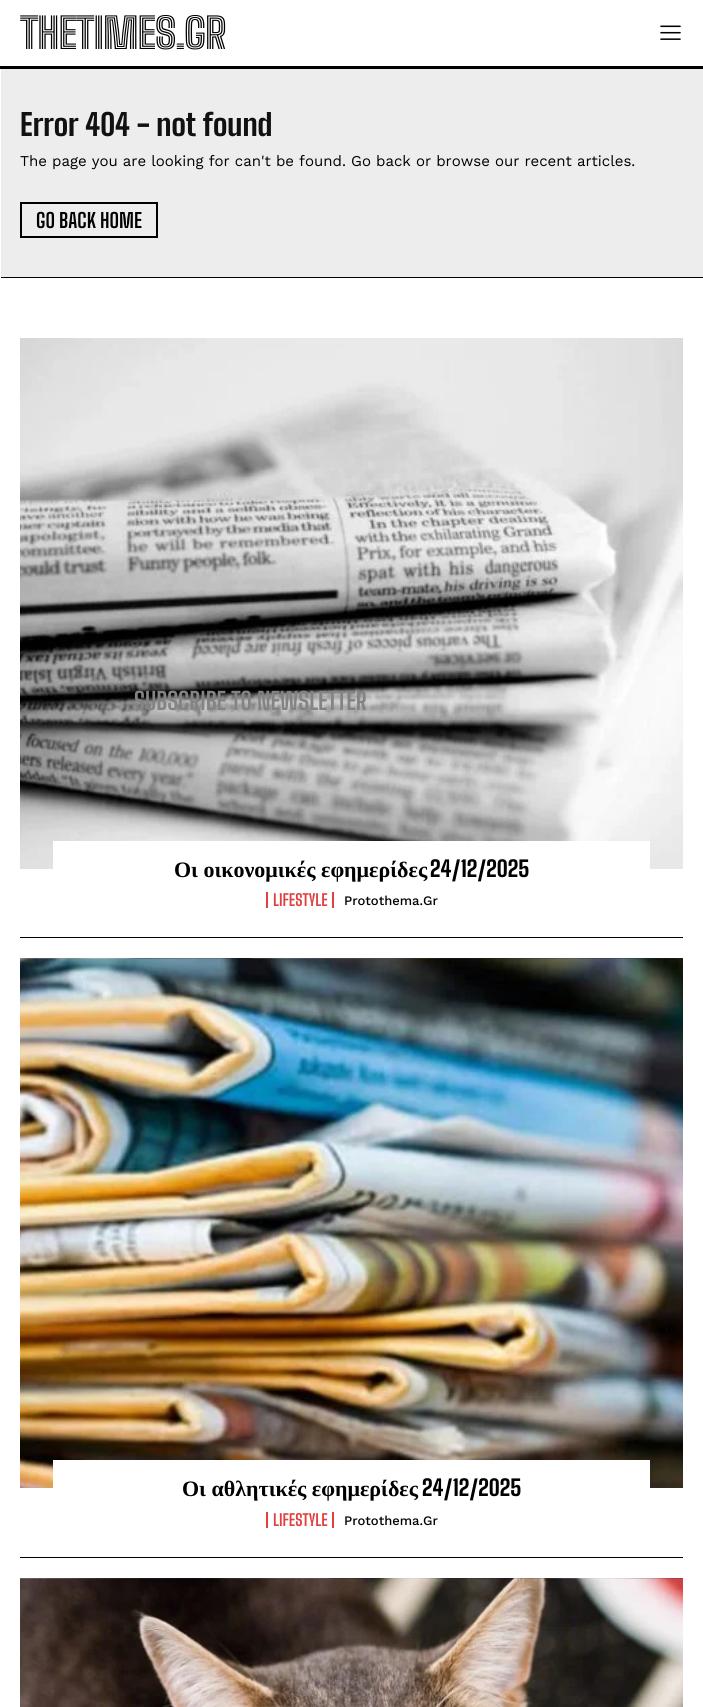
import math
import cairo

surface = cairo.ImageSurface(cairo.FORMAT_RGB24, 703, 1707)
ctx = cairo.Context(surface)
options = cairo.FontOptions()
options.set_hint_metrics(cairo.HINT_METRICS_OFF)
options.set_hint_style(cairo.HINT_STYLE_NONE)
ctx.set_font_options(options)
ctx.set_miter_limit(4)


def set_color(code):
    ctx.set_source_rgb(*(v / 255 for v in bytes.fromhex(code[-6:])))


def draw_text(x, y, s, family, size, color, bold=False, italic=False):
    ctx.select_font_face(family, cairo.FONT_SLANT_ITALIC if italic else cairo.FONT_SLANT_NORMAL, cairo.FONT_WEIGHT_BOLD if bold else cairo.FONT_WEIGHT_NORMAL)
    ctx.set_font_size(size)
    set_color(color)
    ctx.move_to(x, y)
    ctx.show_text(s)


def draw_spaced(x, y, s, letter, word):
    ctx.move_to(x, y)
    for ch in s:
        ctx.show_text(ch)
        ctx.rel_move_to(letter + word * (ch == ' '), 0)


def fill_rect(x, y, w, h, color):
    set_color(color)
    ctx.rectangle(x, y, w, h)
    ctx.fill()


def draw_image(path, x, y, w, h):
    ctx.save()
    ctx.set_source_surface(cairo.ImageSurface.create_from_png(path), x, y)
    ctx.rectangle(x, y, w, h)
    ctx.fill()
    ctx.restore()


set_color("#ffffff")
ctx.paint()
fill_rect(0, 66, 703, 3, "#000000")
ctx.select_font_face("Big Shoulders Inline Text Black")
ctx.set_font_size(42)
draw_spaced(20, 49, "THETIMES.GR", -1, 0)
draw_image("assets/img1.png", 660, 25, 21, 15)
fill_rect(1, 69, 702, 208, "#ededed")
fill_rect(1, 277, 702, 1, "#000000")
draw_text(20, 136, "Error 404 - not found", "Big Shoulders Text ExtraBold", 30, "#111111")
draw_text(20, 166, "The page you are looking for can't be found. Go back or browse our recent articles.", "Work Sans", 15, "#000000")
ctx.rectangle(21, 203, 136, 34)
ctx.stroke()
draw_text(36, 228, "GO BACK HOME", "Big Shoulders Text", 20, "#000000", bold=True)
draw_image("assets/img2.png", 20, 338, 663, 531)
fill_rect(53, 841, 597, 28, "#ffffff")
draw_text(174, 877, "Οι οικονομικές εφημερίδες", "Liberation Serif", 22, "#000000", bold=True)
draw_text(430, 877, "24/12/2025", "Big Shoulders Text ExtraBold", 22, "#000000")
fill_rect(332, 892, 2, 16, "#e04040")
fill_rect(266, 892, 2, 16, "#e04040")
draw_text(273, 906, "LIFESTYLE", "Big Shoulders Text", 16, "#e04040", bold=True)
draw_text(344, 905, "Protothema.Gr", "Work Sans Medium", 13, "#000000")
fill_rect(20, 937, 663, 1, "#000000")
draw_image("assets/img3.png", 20, 958, 663, 530)
fill_rect(53, 1460, 597, 28, "#ffffff")
draw_text(182, 1496, "Οι αθλητικές εφημερίδες", "Liberation Serif", 22, "#000000", bold=True)
draw_text(422, 1496, "24/12/2025", "Big Shoulders Text ExtraBold", 22, "#000000")
fill_rect(332, 1512, 2, 16, "#e04040")
fill_rect(266, 1512, 2, 16, "#e04040")
draw_text(273, 1526, "LIFESTYLE", "Big Shoulders Text", 16, "#e04040", bold=True)
draw_text(344, 1525, "Protothema.Gr", "Work Sans Medium", 13, "#000000")
fill_rect(20, 1557, 663, 1, "#000000")
draw_image("assets/img4.png", 20, 1578, 663, 129)
draw_text(134, 710, "SUBSCRIBE TO NEWSLETTER", "Big Shoulders Text", 24, "#838383", bold=True)
surface.write_to_png("output.png")
